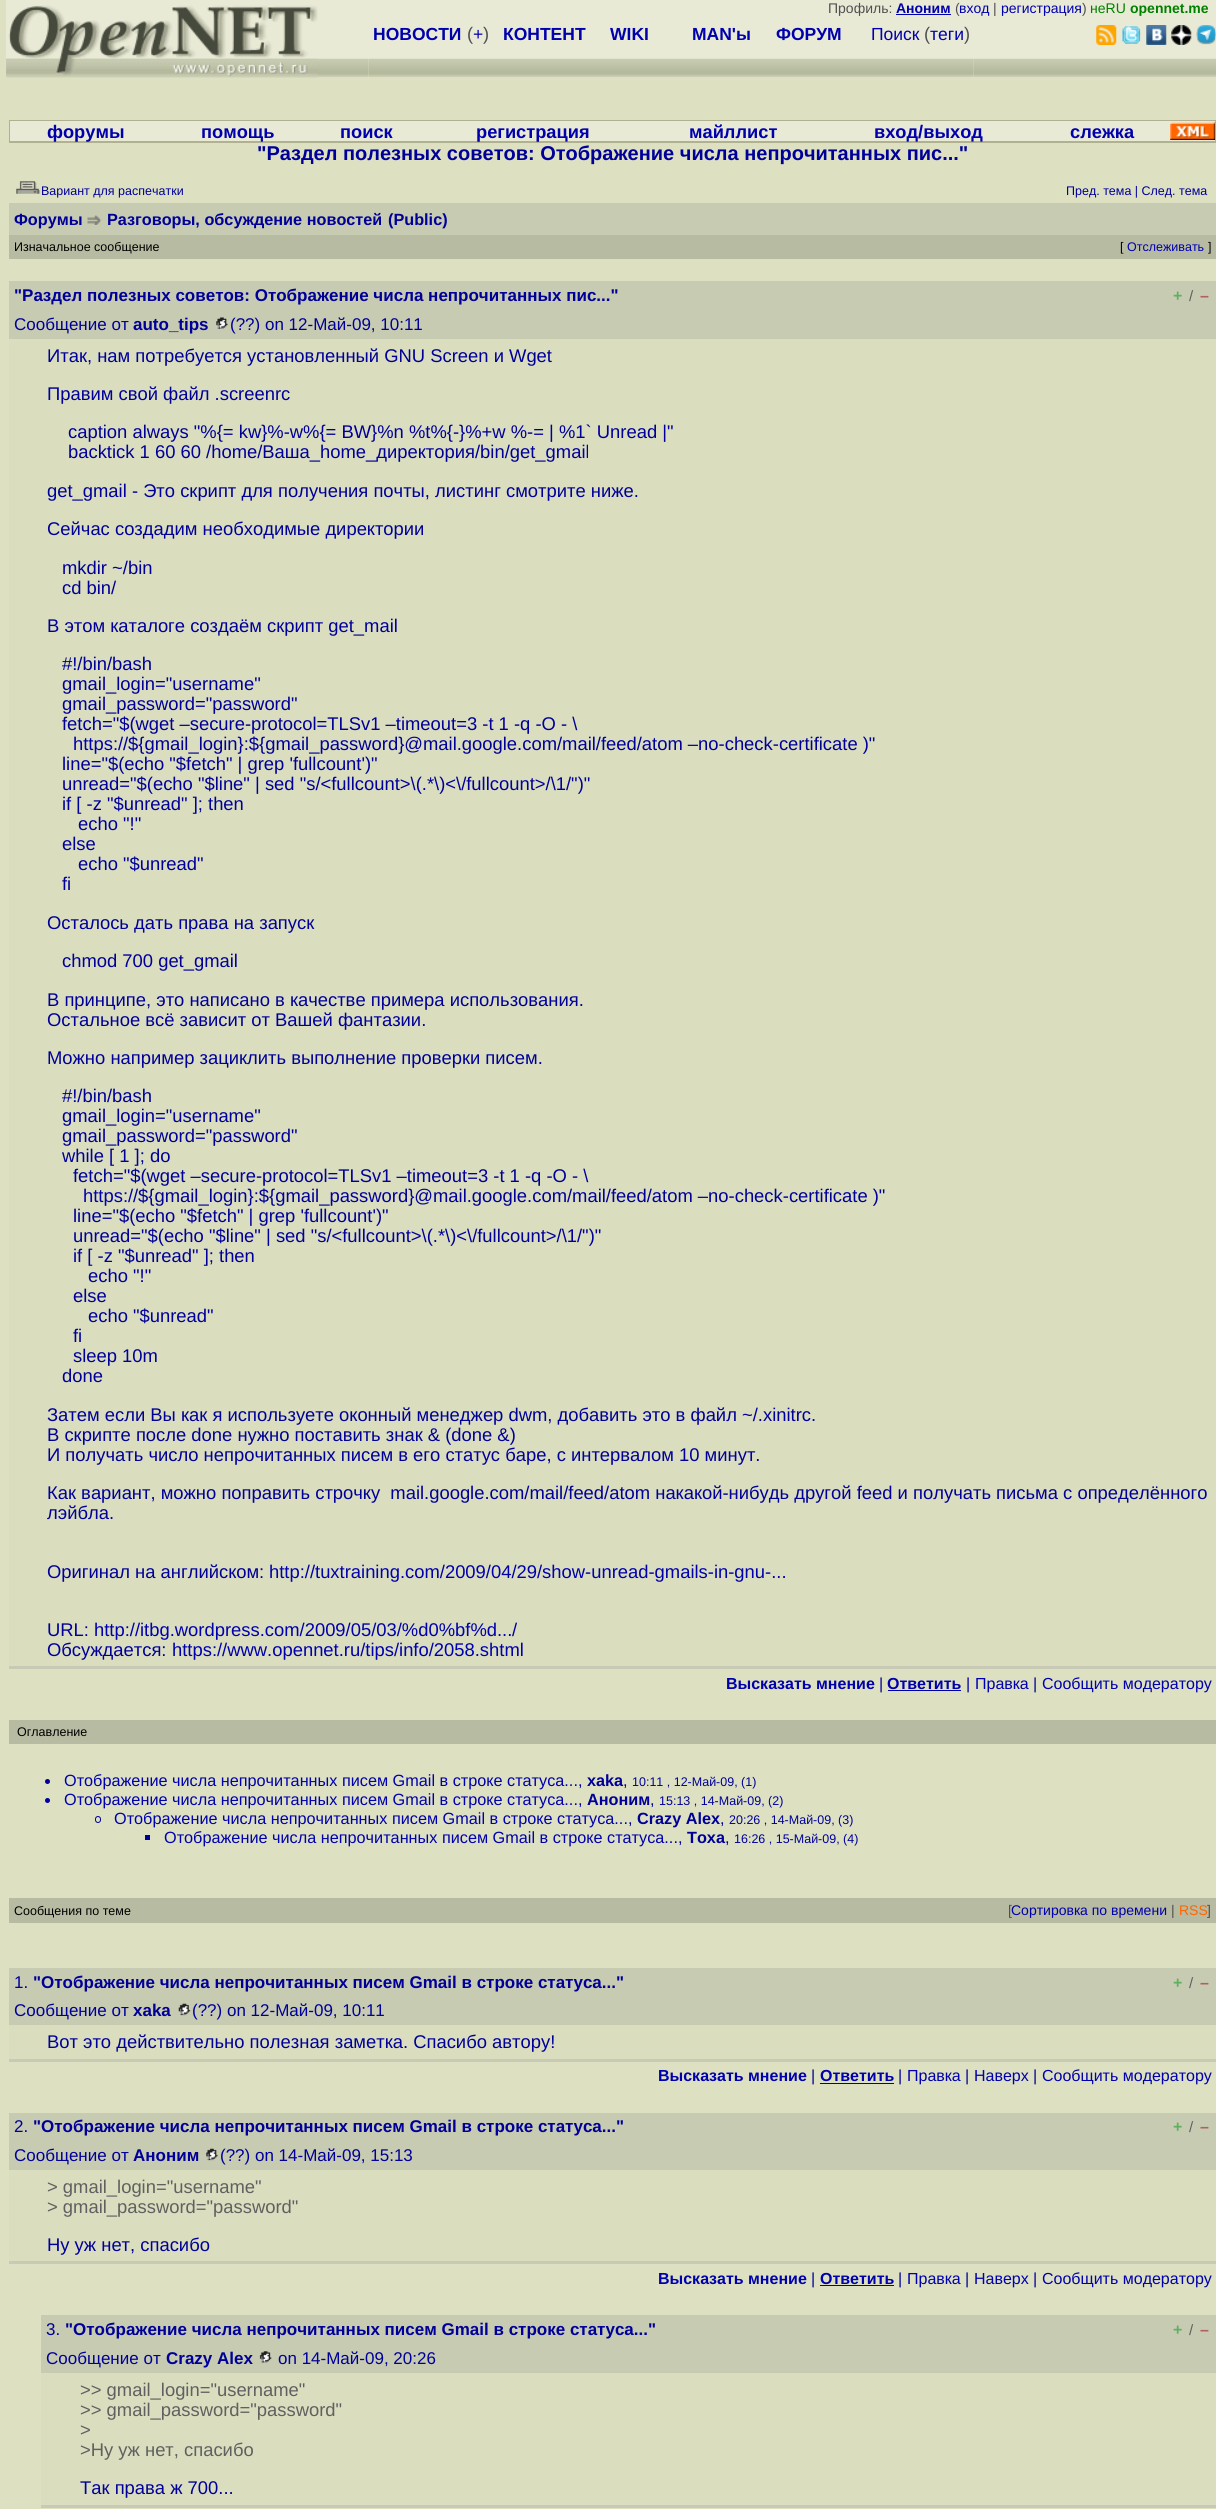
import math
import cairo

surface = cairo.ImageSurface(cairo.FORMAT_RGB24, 1216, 2509)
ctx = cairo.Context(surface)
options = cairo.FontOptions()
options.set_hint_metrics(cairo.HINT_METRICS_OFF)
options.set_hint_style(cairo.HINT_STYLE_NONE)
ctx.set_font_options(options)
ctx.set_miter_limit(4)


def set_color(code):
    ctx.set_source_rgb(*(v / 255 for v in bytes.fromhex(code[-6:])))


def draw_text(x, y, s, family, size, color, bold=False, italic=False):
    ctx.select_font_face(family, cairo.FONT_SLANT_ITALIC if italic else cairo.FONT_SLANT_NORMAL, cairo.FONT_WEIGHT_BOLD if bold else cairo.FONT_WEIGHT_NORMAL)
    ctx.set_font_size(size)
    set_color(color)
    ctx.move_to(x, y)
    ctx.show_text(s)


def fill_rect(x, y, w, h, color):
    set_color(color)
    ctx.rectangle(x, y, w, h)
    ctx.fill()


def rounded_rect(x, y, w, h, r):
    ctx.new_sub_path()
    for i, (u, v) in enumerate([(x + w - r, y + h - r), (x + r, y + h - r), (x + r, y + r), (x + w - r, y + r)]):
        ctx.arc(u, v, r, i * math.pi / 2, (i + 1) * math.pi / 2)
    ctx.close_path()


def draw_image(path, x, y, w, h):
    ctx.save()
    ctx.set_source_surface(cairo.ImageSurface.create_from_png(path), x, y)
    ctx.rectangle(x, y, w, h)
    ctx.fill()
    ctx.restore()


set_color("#dde1c2")
ctx.paint()
fill_rect(6, 0, 1210, 3, "#e9ead6")
fill_rect(6, 3, 1210, 75, "#e9ead6")
draw_text(828, 13, "Профиль:", "Liberation Sans", 14, "#505050")
draw_text(896, 13, "Аноним", "Liberation Sans", 14, "#0000ad", bold=True)
fill_rect(896, 14, 55, 1, "#0000ad")
draw_text(955, 13, "(", "Liberation Sans", 14, "#505050")
draw_text(959, 13, "вход", "Liberation Sans", 14, "#0000ad")
draw_text(993, 13, "|", "Liberation Sans", 14, "#505050")
draw_text(1001, 13, "регистрация", "Liberation Sans", 14, "#0000ad")
draw_text(1082, 13, ")", "Liberation Sans", 14, "#505050")
draw_text(1090, 13, "неRU", "Liberation Sans", 14, "#008000")
draw_text(1130, 13, "opennet.me", "Liberation Sans", 14, "#008000", bold=True)
draw_image("assets/img1.png", 6, 58, 329, 20)
draw_image("assets/img2.png", 6, 5, 312, 73)
draw_image("assets/img3.png", 369, 58, 605, 20)
draw_text(373, 40, "НОВОСТИ", "Liberation Sans", 17.5, "#0000ad", bold=True)
draw_text(467, 40, "(", "Liberation Sans", 18.25, "#505050")
draw_text(473, 40, "+", "Liberation Sans", 17.5, "#0000ad")
draw_text(483, 40, ")", "Liberation Sans", 18.25, "#505050")
draw_text(503, 40, "КОНТЕНТ", "Liberation Sans", 17.5, "#0000ad", bold=True)
draw_text(610, 40, "WIKI", "Liberation Sans", 17.5, "#0000ad", bold=True)
draw_text(692, 40, "MAN'ы", "Liberation Sans", 17.5, "#0000ad", bold=True)
draw_text(776, 40, "ФОРУМ", "Liberation Sans", 17.5, "#0000ad", bold=True)
draw_text(871, 40, "Поиск", "Liberation Sans", 17.5, "#0000ad")
draw_text(924, 40, "(", "Liberation Sans", 18.25, "#505050")
draw_text(930, 40, "теги", "Liberation Sans", 17.5, "#0000ad")
draw_text(964, 40, ")", "Liberation Sans", 18.25, "#505050")
draw_image("assets/img4.png", 974, 58, 242, 20)
draw_image("assets/img5.png", 1096, 25, 21, 20)
draw_image("assets/img6.png", 1122, 26, 19, 18)
draw_image("assets/img7.png", 1146, 25, 21, 20)
draw_image("assets/img8.png", 1171, 25, 21, 20)
draw_image("assets/img9.png", 1196, 25, 20, 20)
draw_image("assets/img10.png", 335, 58, 34, 20)
fill_rect(9, 120, 1207, 23, "#b0b190")
fill_rect(10, 121, 1205, 20, "#e9ead6")
draw_text(47, 138, "форумы", "Liberation Sans", 18.25, "#0000ad", bold=True)
draw_text(201, 138, "помощь", "Liberation Sans", 18.25, "#0000ad", bold=True)
draw_text(340, 138, "поиск", "Liberation Sans", 18.25, "#0000ad", bold=True)
draw_text(476, 138, "регистрация", "Liberation Sans", 18.25, "#0000ad", bold=True)
draw_text(689, 138, "майллист", "Liberation Sans", 18.25, "#0000ad", bold=True)
draw_text(874, 138, "вход/выход", "Liberation Sans", 18.25, "#0000ad", bold=True)
draw_text(1070, 138, "слежка", "Liberation Sans", 18.25, "#0000ad", bold=True)
draw_image("assets/img11.png", 1170, 122, 45, 18)
draw_text(257, 160, "\"Раздел полезных советов: Отображение числа непрочитанных пис...\"", "Liberation Sans", 20, "#000099", bold=True)
draw_image("assets/img12.png", 16, 181, 25, 13)
draw_text(41, 195, "Вариант для распечатки", "Liberation Sans", 12.5, "#000099")
draw_text(1066, 195, "Пред. тема | След. тема", "Liberation Sans", 12.5, "#000099")
fill_rect(9, 203, 1207, 32, "#c7cbb1")
draw_text(14, 225, "Форумы", "Liberation Sans", 16.25, "#000099", bold=True)
draw_image("assets/img13.png", 87, 215, 15, 10)
draw_text(107, 225, "Разговоры, обсуждение новостей", "Liberation Sans", 16.25, "#000099", bold=True)
draw_text(388, 225, "(Public)", "Liberation Sans", 16.25, "#000099", bold=True)
fill_rect(9, 235, 1207, 24, "#b7bba1")
draw_text(14, 251, "Изначальное сообщение", "Liberation Sans", 12.5, "#000000")
draw_text(1120, 251, "[", "Liberation Sans", 12.5, "#000000")
draw_text(1127, 251, "Отслеживать", "Liberation Sans", 12.5, "#0000ad")
draw_text(1208, 251, "]", "Liberation Sans", 12.5, "#000000")
fill_rect(9, 281, 1207, 58, "#c7cbb1")
draw_text(14, 301, "\"Раздел полезных советов: Отображение числа непрочитанных пис...\"", "Liberation Sans", 17, "#000099", bold=True)
draw_text(1173, 301, "+", "Liberation Sans", 16, "#60b060", bold=True)
draw_text(1189, 301, "/", "Liberation Sans", 15, "#606060")
draw_text(1200, 301, "–", "Liberation Sans", 16, "#b06060", bold=True)
draw_text(14, 330, "Сообщение от", "Liberation Sans", 17, "#000099")
draw_text(133, 330, "auto_tips", "Liberation Sans", 17, "#000099", bold=True)
draw_image("assets/img14.png", 216, 317, 12, 12)
draw_text(230, 330, "(??) on 12-Май-09, 10:11", "Liberation Sans", 17, "#000099")
fill_rect(9, 339, 1207, 1327, "#dadebf")
draw_text(47, 362, "Итак, нам потребуется установленный GNU Screen и Wget", "Liberation Sans", 18.4, "#000099")
draw_text(47, 400, "Правим свой файл .screenrc", "Liberation Sans", 18.4, "#000099")
draw_text(68, 438, "caption always \"%{= kw}%-w%{= BW}%n %t%{-}%+w %-= | %1` Unread |\"", "Liberation Sans", 18.4, "#000099")
draw_text(68, 458, "backtick 1 60 60 /home/Ваша_home_директория/bin/get_gmail", "Liberation Sans", 18.4, "#000099")
draw_text(47, 497, "get_gmail - Это скрипт для получения почты, листинг смотрите ниже.", "Liberation Sans", 18.4, "#000099")
draw_text(47, 535, "Сейчас создадим необходимые директории", "Liberation Sans", 18.4, "#000099")
draw_text(62, 574, "mkdir ~/bin", "Liberation Sans", 18.4, "#000099")
draw_text(62, 594, "cd bin/", "Liberation Sans", 18.4, "#000099")
draw_text(47, 632, "В этом каталоге создаём скрипт get_mail", "Liberation Sans", 18.4, "#000099")
draw_text(62, 670, "#!/bin/bash", "Liberation Sans", 18.4, "#000099")
draw_text(62, 690, "gmail_login=\"username\"", "Liberation Sans", 18.4, "#000099")
draw_text(62, 710, "gmail_password=\"password\"", "Liberation Sans", 18.4, "#000099")
draw_text(62, 730, "fetch=\"$(wget –secure-protocol=TLSv1 –timeout=3 -t 1 -q -O - \\", "Liberation Sans", 18.4, "#000099")
draw_text(73, 750, "https:/", "Liberation Sans", 18.4, "#0000ad")
draw_text(123, 750, "/${gmail_login}:${gmail_password}@mail.google.com/mail/feed/atom –no-check-certificate )\"", "Liberation Sans", 18.4, "#000099")
draw_text(62, 770, "line=\"$(echo \"$fetch\" | grep 'fullcount')\"", "Liberation Sans", 18.4, "#000099")
draw_text(62, 790, "unread=\"$(echo \"$line\" | sed \"s/<fullcount>\\(.*\\)<\\/fullcount>/\\1/\")\"", "Liberation Sans", 18.4, "#000099")
draw_text(62, 810, "if [ -z \"$unread\" ]; then", "Liberation Sans", 18.4, "#000099")
draw_text(78, 830, "echo \"!\"", "Liberation Sans", 18.4, "#000099")
draw_text(62, 850, "else", "Liberation Sans", 18.4, "#000099")
draw_text(78, 870, "echo \"$unread\"", "Liberation Sans", 18.4, "#000099")
draw_text(62, 890, "fi", "Liberation Sans", 18.4, "#000099")
draw_text(47, 929, "Осталось дать права на запуск", "Liberation Sans", 18.4, "#000099")
draw_text(62, 967, "chmod 700 get_gmail", "Liberation Sans", 18.4, "#000099")
draw_text(47, 1006, "В принципе, это написано в качестве примера использования.", "Liberation Sans", 18.4, "#000099")
draw_text(47, 1026, "Остальное всё зависит от Вашей фантазии.", "Liberation Sans", 18.4, "#000099")
draw_text(47, 1064, "Можно например зациклить выполнение проверки писем.", "Liberation Sans", 18.4, "#000099")
draw_text(62, 1102, "#!/bin/bash", "Liberation Sans", 18.4, "#000099")
draw_text(62, 1122, "gmail_login=\"username\"", "Liberation Sans", 18.4, "#000099")
draw_text(62, 1142, "gmail_password=\"password\"", "Liberation Sans", 18.4, "#000099")
draw_text(62, 1162, "while [ 1 ]; do", "Liberation Sans", 18.4, "#000099")
draw_text(73, 1182, "fetch=\"$(wget –secure-protocol=TLSv1 –timeout=3 -t 1 -q -O - \\", "Liberation Sans", 18.4, "#000099")
draw_text(83, 1202, "https:/", "Liberation Sans", 18.4, "#0000ad")
draw_text(133, 1202, "/${gmail_login}:${gmail_password}@mail.google.com/mail/feed/atom –no-check-certificate )\"", "Liberation Sans", 18.4, "#000099")
draw_text(73, 1222, "line=\"$(echo \"$fetch\" | grep 'fullcount')\"", "Liberation Sans", 18.4, "#000099")
draw_text(73, 1242, "unread=\"$(echo \"$line\" | sed \"s/<fullcount>\\(.*\\)<\\/fullcount>/\\1/\")\"", "Liberation Sans", 18.4, "#000099")
draw_text(73, 1262, "if [ -z \"$unread\" ]; then", "Liberation Sans", 18.4, "#000099")
draw_text(88, 1282, "echo \"!\"", "Liberation Sans", 18.4, "#000099")
draw_text(73, 1302, "else", "Liberation Sans", 18.4, "#000099")
draw_text(88, 1322, "echo \"$unread\"", "Liberation Sans", 18.4, "#000099")
draw_text(73, 1342, "fi", "Liberation Sans", 18.4, "#000099")
draw_text(73, 1362, "sleep 10m", "Liberation Sans", 18.4, "#000099")
draw_text(62, 1382, "done", "Liberation Sans", 18.4, "#000099")
draw_text(47, 1421, "Затем если Вы как я используете оконный менеджер dwm, добавить это в файл ~/.xinitrc.", "Liberation Sans", 18.4, "#000099")
draw_text(47, 1441, "В скрипте после done нужно поставить знак & (done &)", "Liberation Sans", 18.4, "#000099")
draw_text(47, 1461, "И получать число непрочитанных писем в его статус баре, с интервалом 10 минут.", "Liberation Sans", 18.4, "#000099")
draw_text(47, 1499, "Как вариант, можно поправить строчку  mail.google.com/mail/feed/atom накакой-нибудь другой feed и получать письма с определённого", "Liberation Sans", 18.4, "#000099")
draw_text(47, 1519, "лэйбла.", "Liberation Sans", 18.4, "#000099")
draw_text(47, 1578, "Оригинал на английском:", "Liberation Sans", 18.4, "#000099")
draw_text(269, 1578, "http://tuxtraining.com/2009/04/29/show-unread-gmails-in-gnu-...", "Liberation Sans", 18.4, "#0000ad")
draw_text(47, 1636, "URL:", "Liberation Sans", 18.4, "#000099")
draw_text(94, 1636, "http://itbg.wordpress.com/2009/05/03/%d0%bf%d...", "Liberation Sans", 18.4, "#0000ad")
draw_text(512, 1636, "/", "Liberation Sans", 18.4, "#000099")
draw_text(47, 1656, "Обсуждается:", "Liberation Sans", 18.4, "#000099")
draw_text(172, 1656, "https://www.opennet.ru/tips/info/2058.shtml", "Liberation Sans", 18.4, "#0000ad")
fill_rect(9, 1666, 1207, 3, "#c9cab6")
draw_text(726, 1689, "Высказать мнение", "Liberation Sans", 16, "#0000ad", bold=True)
draw_text(879, 1689, "|", "Liberation Sans", 16, "#000099")
draw_text(887, 1689, "Ответить", "Liberation Sans", 16, "#0000ad", bold=True)
fill_rect(888, 1690, 73, 1, "#0000ad")
draw_text(966, 1689, "|", "Liberation Sans", 16, "#000099")
draw_text(975, 1689, "Правка", "Liberation Sans", 16, "#0000ad")
draw_text(1033, 1689, "|", "Liberation Sans", 16, "#000099")
draw_text(1042, 1689, "Cообщить модератору", "Liberation Sans", 16, "#0000ad")
fill_rect(9, 1720, 1207, 24, "#b7bba1")
draw_text(17, 1736, "Оглавление", "Liberation Sans", 12.5, "#000000")
set_color("#000099")
ctx.new_path()
ctx.arc(47.5, 1781.5, 2.5, 0, 2 * math.pi)
ctx.fill()
draw_text(64, 1786, "Отображение числа непрочитанных писем Gmail в строке статуса...", "Liberation Sans", 16.25, "#0000ad")
draw_text(587, 1786, "xaka", "Liberation Sans", 16.25, "#000099", bold=True)
draw_text(632, 1786, "10:11 , 12-Май-09, (1)", "Liberation Sans", 12.5, "#000099")
draw_text(578, 1786, ",", "Liberation Sans", 16.25, "#000099")
draw_text(623, 1786, ",", "Liberation Sans", 16.25, "#000099")
ctx.new_path()
ctx.arc(47.5, 1800.5, 2.5, 0, 2 * math.pi)
ctx.fill()
draw_text(64, 1805, "Отображение числа непрочитанных писем Gmail в строке статуса...", "Liberation Sans", 16.25, "#0000ad")
draw_text(587, 1805, "Аноним", "Liberation Sans", 16.25, "#000099", bold=True)
draw_text(659, 1805, "15:13 , 14-Май-09, (2)", "Liberation Sans", 12.5, "#000099")
draw_text(578, 1805, ",", "Liberation Sans", 16.25, "#000099")
draw_text(650, 1805, ",", "Liberation Sans", 16.25, "#000099")
rounded_rect(95.5, 1816.5, 5, 6, 2.5)
ctx.set_line_width(1)
ctx.stroke()
draw_text(114, 1824, "Отображение числа непрочитанных писем Gmail в строке статуса...", "Liberation Sans", 16.25, "#0000ad")
draw_text(637, 1824, "Crazy Alex", "Liberation Sans", 16.25, "#000099", bold=True)
draw_text(729, 1824, "20:26 , 14-Май-09, (3)", "Liberation Sans", 12.5, "#000099")
draw_text(628, 1824, ",", "Liberation Sans", 16.25, "#000099")
draw_text(720, 1824, ",", "Liberation Sans", 16.25, "#000099")
fill_rect(145, 1835, 5, 5, "#000099")
draw_text(164, 1843, "Отображение числа непрочитанных писем Gmail в строке статуса...", "Liberation Sans", 16.25, "#0000ad")
draw_text(687, 1843, "Toxa", "Liberation Sans", 16.25, "#000099", bold=True)
draw_text(734, 1843, "16:26 , 15-Май-09, (4)", "Liberation Sans", 12.5, "#000099")
draw_text(678, 1843, ",", "Liberation Sans", 16.25, "#000099")
draw_text(725, 1843, ",", "Liberation Sans", 16.25, "#000099")
fill_rect(9, 1898, 1207, 25, "#b7bba1")
draw_text(14, 1915, "Сообщения по теме", "Liberation Sans", 12.5, "#000000")
draw_text(1008, 1915, "[", "Liberation Sans", 14, "#505050")
draw_text(1011, 1915, "Сортировка по времени", "Liberation Sans", 14, "#0000ad")
draw_text(1171, 1915, "|", "Liberation Sans", 14, "#505050")
draw_text(1179, 1915, "RSS", "Liberation Sans", 14, "#ff6600")
draw_text(1207, 1915, "]", "Liberation Sans", 14, "#505050")
fill_rect(9, 1968, 1207, 57, "#c7cbb1")
draw_text(14, 1988, "1.", "Liberation Sans", 17, "#000099")
draw_text(33, 1988, "\"Отображение числа непрочитанных писем Gmail в строке статуса...\"", "Liberation Sans", 17, "#000099", bold=True)
draw_text(1173, 1988, "+", "Liberation Sans", 16, "#60b060", bold=True)
draw_text(1189, 1988, "/", "Liberation Sans", 15, "#606060")
draw_text(1200, 1988, "–", "Liberation Sans", 16, "#b06060", bold=True)
draw_text(14, 2016, "Сообщение от", "Liberation Sans", 17, "#000099")
draw_text(133, 2016, "xaka", "Liberation Sans", 17, "#000099", bold=True)
draw_image("assets/img15.png", 178, 2003, 13, 13)
draw_text(192, 2016, "(??) on 12-Май-09, 10:11", "Liberation Sans", 17, "#000099")
fill_rect(9, 2025, 1207, 34, "#dadebf")
draw_text(47, 2048, "Вот это действительно полезная заметка. Спасибо автору!", "Liberation Sans", 18.4, "#000099")
fill_rect(9, 2059, 1207, 3, "#c9cab6")
draw_text(658, 2081, "Высказать мнение", "Liberation Sans", 16, "#0000ad", bold=True)
draw_text(811, 2081, "|", "Liberation Sans", 16, "#000099")
draw_text(820, 2081, "Ответить", "Liberation Sans", 16, "#0000ad", bold=True)
fill_rect(820, 2083, 74, 1, "#0000ad")
draw_text(898, 2081, "|", "Liberation Sans", 16, "#000099")
draw_text(907, 2081, "Правка", "Liberation Sans", 16, "#0000ad")
draw_text(965, 2081, "|", "Liberation Sans", 16, "#000099")
draw_text(974, 2081, "Наверх", "Liberation Sans", 16, "#0000ad")
draw_text(1033, 2081, "|", "Liberation Sans", 16, "#000099")
draw_text(1042, 2081, "Cообщить модератору", "Liberation Sans", 16, "#0000ad")
fill_rect(9, 2113, 1207, 57, "#c7cbb1")
draw_text(14, 2132, "2.", "Liberation Sans", 17, "#000099")
draw_text(33, 2132, "\"Отображение числа непрочитанных писем Gmail в строке статуса...\"", "Liberation Sans", 17, "#000099", bold=True)
draw_text(1173, 2132, "+", "Liberation Sans", 16, "#60b060", bold=True)
draw_text(1189, 2132, "/", "Liberation Sans", 15, "#606060")
draw_text(1200, 2132, "–", "Liberation Sans", 16, "#b06060", bold=True)
draw_text(14, 2161, "Сообщение от", "Liberation Sans", 17, "#000099")
draw_text(133, 2161, "Аноним", "Liberation Sans", 17, "#000099", bold=True)
draw_image("assets/img16.png", 206, 2148, 12, 13)
draw_text(220, 2161, "(??) on 14-Май-09, 15:13", "Liberation Sans", 17, "#000099")
fill_rect(9, 2170, 1207, 91, "#dadebf")
draw_text(47, 2193, "> gmail_login=\"username\"", "Liberation Sans", 18.4, "#606060")
draw_text(47, 2213, "> gmail_password=\"password\"", "Liberation Sans", 18.4, "#606060")
draw_text(47, 2251, "Ну уж нет, спасибо", "Liberation Sans", 18.4, "#000099")
fill_rect(9, 2261, 1207, 3, "#c9cab6")
draw_text(658, 2284, "Высказать мнение", "Liberation Sans", 16, "#0000ad", bold=True)
draw_text(811, 2284, "|", "Liberation Sans", 16, "#000099")
draw_text(820, 2284, "Ответить", "Liberation Sans", 16, "#0000ad", bold=True)
fill_rect(820, 2285, 74, 1, "#0000ad")
draw_text(898, 2284, "|", "Liberation Sans", 16, "#000099")
draw_text(907, 2284, "Правка", "Liberation Sans", 16, "#0000ad")
draw_text(965, 2284, "|", "Liberation Sans", 16, "#000099")
draw_text(974, 2284, "Наверх", "Liberation Sans", 16, "#0000ad")
draw_text(1033, 2284, "|", "Liberation Sans", 16, "#000099")
draw_text(1042, 2284, "Cообщить модератору", "Liberation Sans", 16, "#0000ad")
fill_rect(41, 2315, 1175, 58, "#c7cbb1")
draw_text(46, 2335, "3.", "Liberation Sans", 17, "#000099")
draw_text(65, 2335, "\"Отображение числа непрочитанных писем Gmail в строке статуса...\"", "Liberation Sans", 17, "#000099", bold=True)
draw_text(1173, 2335, "+", "Liberation Sans", 16, "#60b060", bold=True)
draw_text(1189, 2335, "/", "Liberation Sans", 15, "#606060")
draw_text(1200, 2335, "–", "Liberation Sans", 16, "#b06060", bold=True)
draw_text(46, 2364, "Сообщение от", "Liberation Sans", 17, "#000099")
draw_text(166, 2364, "Crazy Alex", "Liberation Sans", 17, "#000099", bold=True)
draw_image("assets/img17.png", 259, 2351, 13, 12)
draw_text(278, 2364, "on 14-Май-09, 20:26", "Liberation Sans", 17, "#000099")
fill_rect(41, 2373, 1175, 132, "#dadebf")
draw_text(80, 2396, ">> gmail_login=\"username\"", "Liberation Sans", 18.4, "#606060")
draw_text(80, 2416, ">> gmail_password=\"password\"", "Liberation Sans", 18.4, "#606060")
draw_text(80, 2436, ">", "Liberation Sans", 18.4, "#606060")
draw_text(80, 2456, ">Ну уж нет, спасибо", "Liberation Sans", 18.4, "#606060")
draw_text(80, 2494, "Так права ж 700...", "Liberation Sans", 18.4, "#000099")
fill_rect(41, 2505, 1175, 3, "#c9cab6")
surface.write_to_png("output.png")
